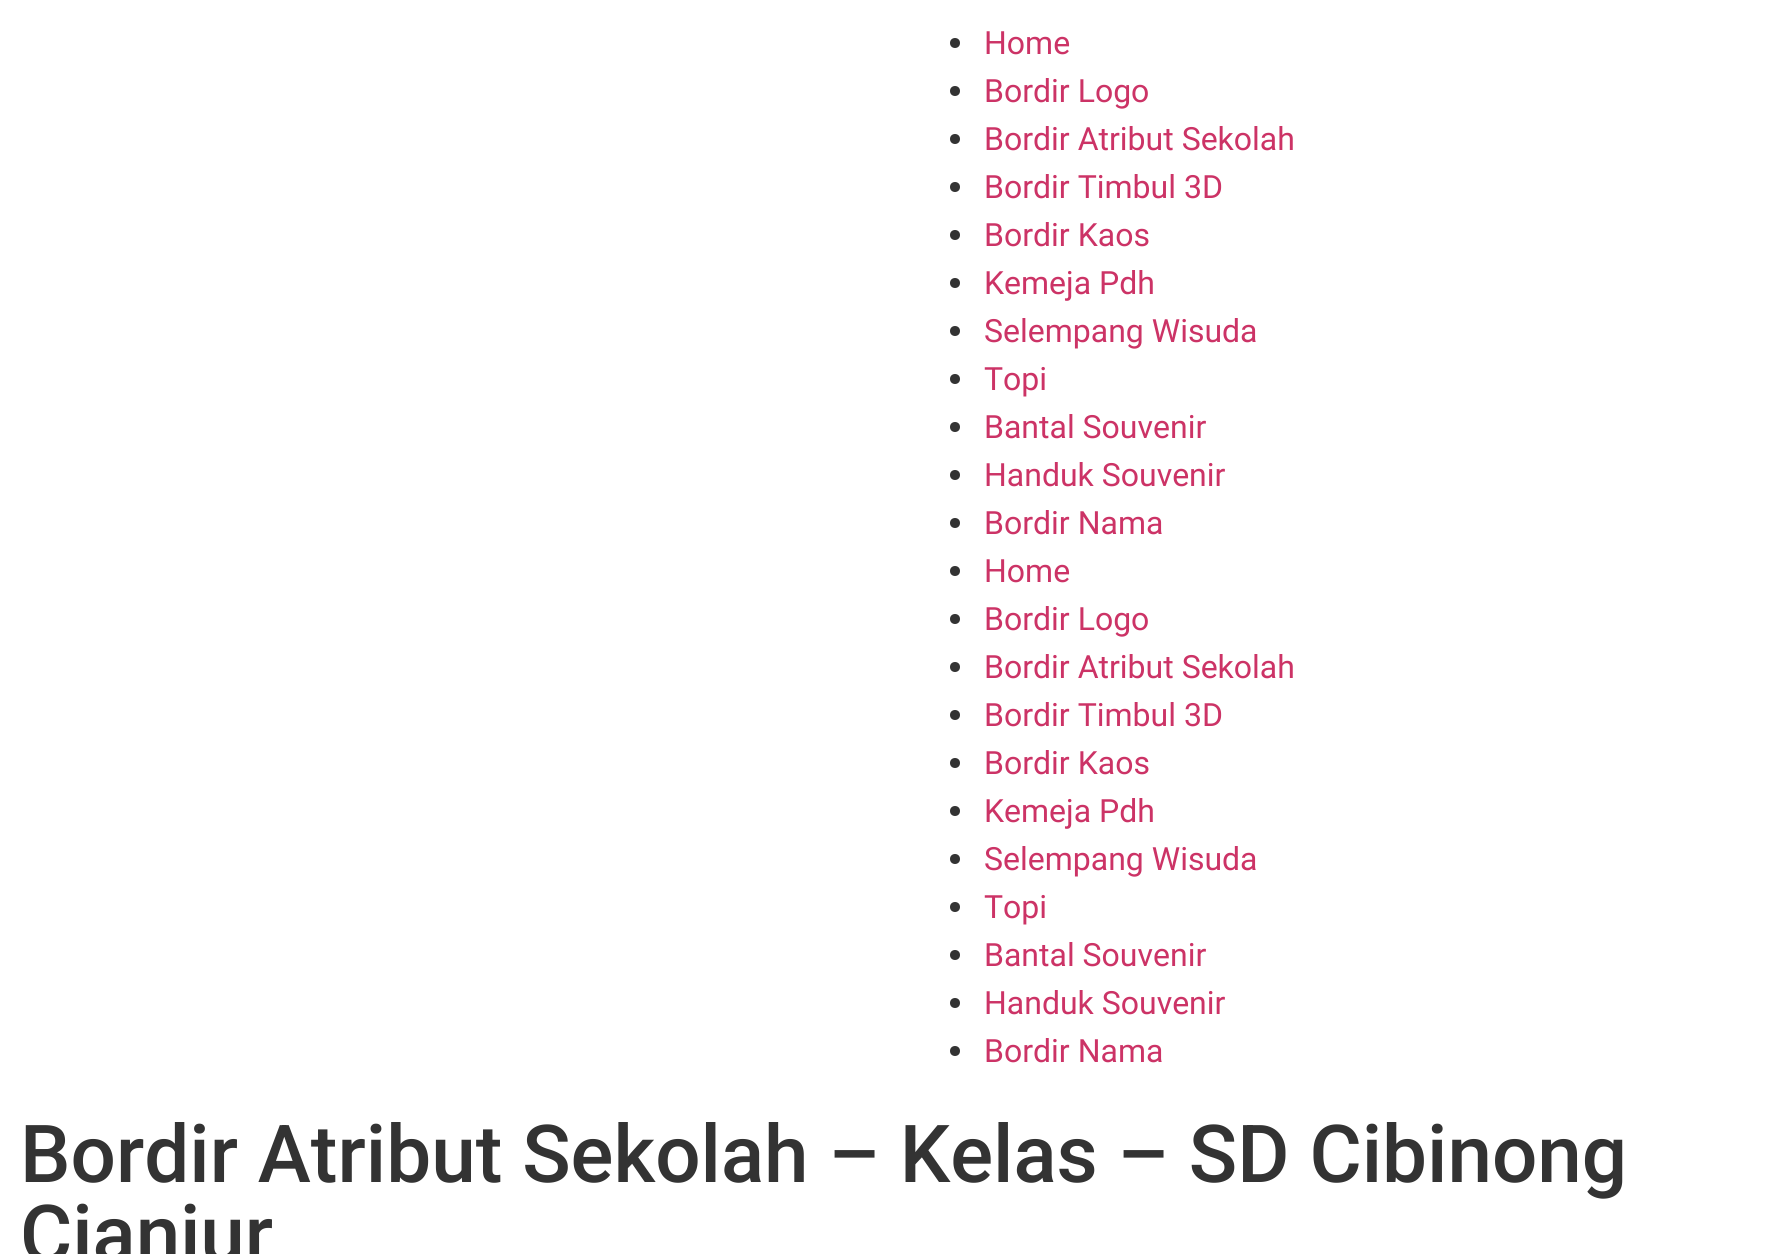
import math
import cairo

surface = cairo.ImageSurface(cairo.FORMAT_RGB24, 1767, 1254)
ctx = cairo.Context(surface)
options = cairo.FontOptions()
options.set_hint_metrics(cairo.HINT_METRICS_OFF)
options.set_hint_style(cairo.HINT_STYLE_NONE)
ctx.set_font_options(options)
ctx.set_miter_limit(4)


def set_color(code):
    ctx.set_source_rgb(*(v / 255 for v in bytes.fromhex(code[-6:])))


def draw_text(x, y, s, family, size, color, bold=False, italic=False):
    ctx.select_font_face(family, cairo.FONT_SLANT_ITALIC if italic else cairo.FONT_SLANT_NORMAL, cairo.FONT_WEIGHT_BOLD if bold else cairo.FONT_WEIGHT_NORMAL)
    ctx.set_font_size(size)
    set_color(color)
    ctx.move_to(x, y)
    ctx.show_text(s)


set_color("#ffffff")
ctx.paint()
set_color("#333333")
ctx.arc(955, 43, 5, 0, 2 * math.pi)
ctx.fill()
draw_text(984, 54, "Home", "Roboto", 32, "#cc3366")
set_color("#333333")
ctx.new_path()
ctx.arc(955, 91, 5, 0, 2 * math.pi)
ctx.fill()
draw_text(984, 102, "Bordir Logo", "Roboto", 32, "#cc3366")
set_color("#333333")
ctx.new_path()
ctx.arc(955, 139, 5, 0, 2 * math.pi)
ctx.fill()
draw_text(984, 150, "Bordir Atribut Sekolah", "Roboto", 32, "#cc3366")
set_color("#333333")
ctx.new_path()
ctx.arc(955, 187, 5, 0, 2 * math.pi)
ctx.fill()
draw_text(984, 198, "Bordir Timbul 3D", "Roboto", 32, "#cc3366")
set_color("#333333")
ctx.new_path()
ctx.arc(955, 235, 5, 0, 2 * math.pi)
ctx.fill()
draw_text(984, 246, "Bordir Kaos", "Roboto", 32, "#cc3366")
set_color("#333333")
ctx.new_path()
ctx.arc(955, 283, 5, 0, 2 * math.pi)
ctx.fill()
draw_text(984, 294, "Kemeja Pdh", "Roboto", 32, "#cc3366")
set_color("#333333")
ctx.new_path()
ctx.arc(955, 331, 5, 0, 2 * math.pi)
ctx.fill()
draw_text(984, 342, "Selempang Wisuda", "Roboto", 32, "#cc3366")
set_color("#333333")
ctx.new_path()
ctx.arc(955, 379, 5, 0, 2 * math.pi)
ctx.fill()
draw_text(984, 390, "Topi", "Roboto", 32, "#cc3366")
set_color("#333333")
ctx.new_path()
ctx.arc(955, 427, 5, 0, 2 * math.pi)
ctx.fill()
draw_text(984, 438, "Bantal Souvenir", "Roboto", 32, "#cc3366")
set_color("#333333")
ctx.new_path()
ctx.arc(955, 475, 5, 0, 2 * math.pi)
ctx.fill()
draw_text(984, 486, "Handuk Souvenir", "Roboto", 32, "#cc3366")
set_color("#333333")
ctx.new_path()
ctx.arc(955, 523, 5, 0, 2 * math.pi)
ctx.fill()
draw_text(984, 534, "Bordir Nama", "Roboto", 32, "#cc3366")
set_color("#333333")
ctx.new_path()
ctx.arc(955, 571, 5, 0, 2 * math.pi)
ctx.fill()
draw_text(984, 582, "Home", "Roboto", 32, "#cc3366")
set_color("#333333")
ctx.new_path()
ctx.arc(955, 619, 5, 0, 2 * math.pi)
ctx.fill()
draw_text(984, 630, "Bordir Logo", "Roboto", 32, "#cc3366")
set_color("#333333")
ctx.new_path()
ctx.arc(955, 667, 5, 0, 2 * math.pi)
ctx.fill()
draw_text(984, 678, "Bordir Atribut Sekolah", "Roboto", 32, "#cc3366")
set_color("#333333")
ctx.new_path()
ctx.arc(955, 715, 5, 0, 2 * math.pi)
ctx.fill()
draw_text(984, 726, "Bordir Timbul 3D", "Roboto", 32, "#cc3366")
set_color("#333333")
ctx.new_path()
ctx.arc(955, 763, 5, 0, 2 * math.pi)
ctx.fill()
draw_text(984, 774, "Bordir Kaos", "Roboto", 32, "#cc3366")
set_color("#333333")
ctx.new_path()
ctx.arc(955, 811, 5, 0, 2 * math.pi)
ctx.fill()
draw_text(984, 822, "Kemeja Pdh", "Roboto", 32, "#cc3366")
set_color("#333333")
ctx.new_path()
ctx.arc(955, 859, 5, 0, 2 * math.pi)
ctx.fill()
draw_text(984, 870, "Selempang Wisuda", "Roboto", 32, "#cc3366")
set_color("#333333")
ctx.new_path()
ctx.arc(955, 907, 5, 0, 2 * math.pi)
ctx.fill()
draw_text(984, 918, "Topi", "Roboto", 32, "#cc3366")
set_color("#333333")
ctx.new_path()
ctx.arc(955, 955, 5, 0, 2 * math.pi)
ctx.fill()
draw_text(984, 966, "Bantal Souvenir", "Roboto", 32, "#cc3366")
set_color("#333333")
ctx.new_path()
ctx.arc(955, 1003, 5, 0, 2 * math.pi)
ctx.fill()
draw_text(984, 1014, "Handuk Souvenir", "Roboto", 32, "#cc3366")
set_color("#333333")
ctx.new_path()
ctx.arc(955, 1051, 5, 0, 2 * math.pi)
ctx.fill()
draw_text(984, 1062, "Bordir Nama", "Roboto", 32, "#cc3366")
draw_text(20, 1182, "Bordir Atribut Sekolah – Kelas – SD Cibinong", "Roboto Medium", 80, "#333333")
draw_text(20, 1262, "Cianjur", "Roboto Medium", 80, "#333333")
surface.write_to_png("output.png")
